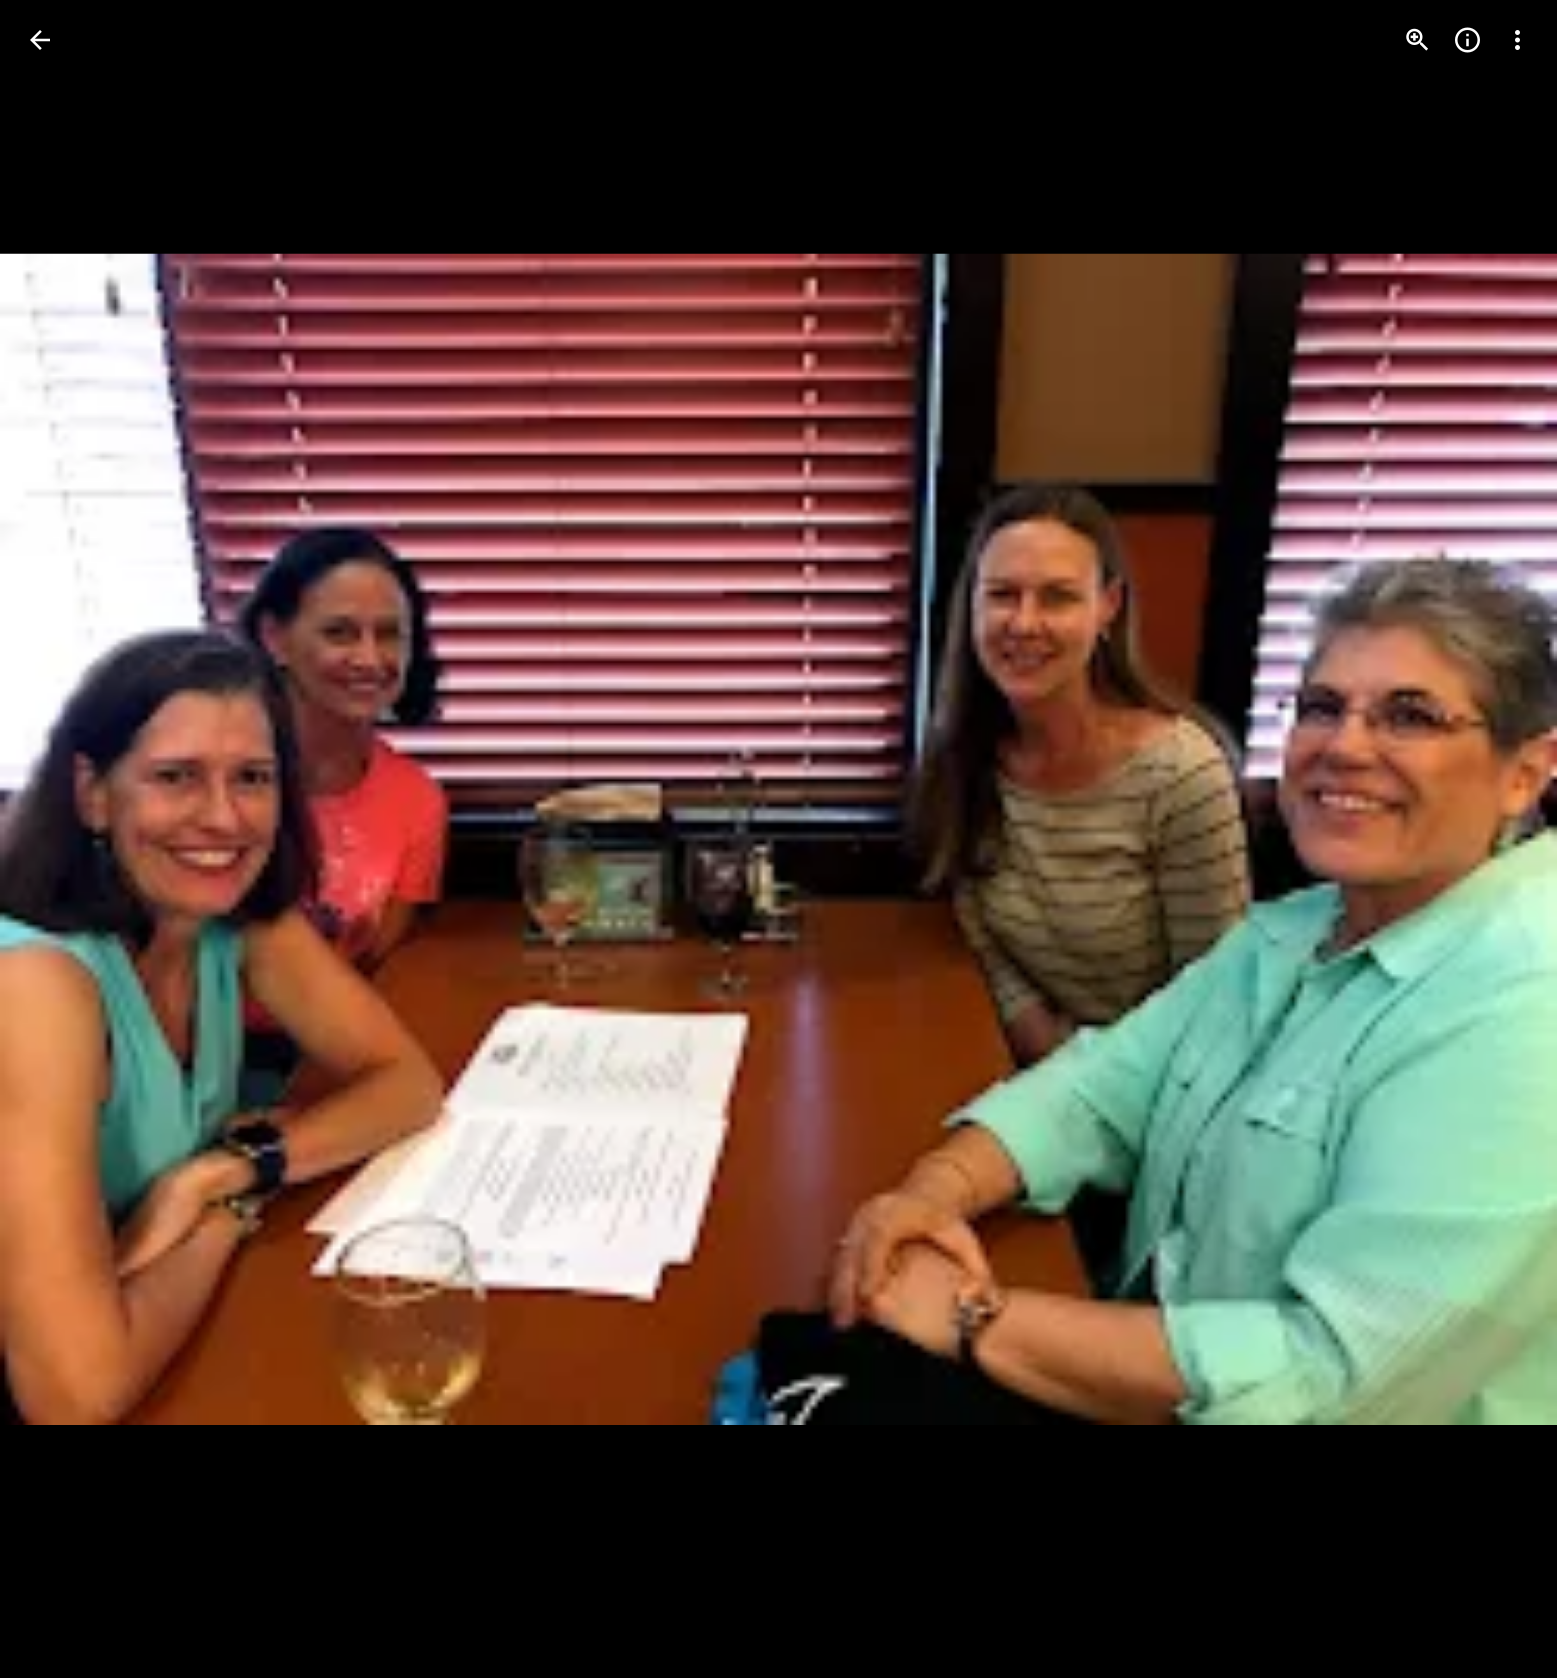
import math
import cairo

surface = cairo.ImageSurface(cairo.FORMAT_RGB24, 1557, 1678)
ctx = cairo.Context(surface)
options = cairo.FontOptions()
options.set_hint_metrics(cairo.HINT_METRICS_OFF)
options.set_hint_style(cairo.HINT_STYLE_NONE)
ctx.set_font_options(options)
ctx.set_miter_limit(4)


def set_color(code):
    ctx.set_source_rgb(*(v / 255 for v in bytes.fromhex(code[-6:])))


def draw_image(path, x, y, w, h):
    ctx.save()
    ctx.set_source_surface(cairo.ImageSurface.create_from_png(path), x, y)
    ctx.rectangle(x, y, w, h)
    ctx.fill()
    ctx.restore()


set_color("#000000")
ctx.paint()
draw_image("assets/img1.png", 30, 30, 20, 20)
draw_image("assets/img2.png", 1406, 28, 22, 23)
draw_image("assets/img3.png", 1455, 27, 25, 26)
draw_image("assets/img4.png", 1515, 30, 5, 20)
draw_image("assets/img5.png", 0, 253, 1557, 1172)
surface.write_to_png("output.png")
